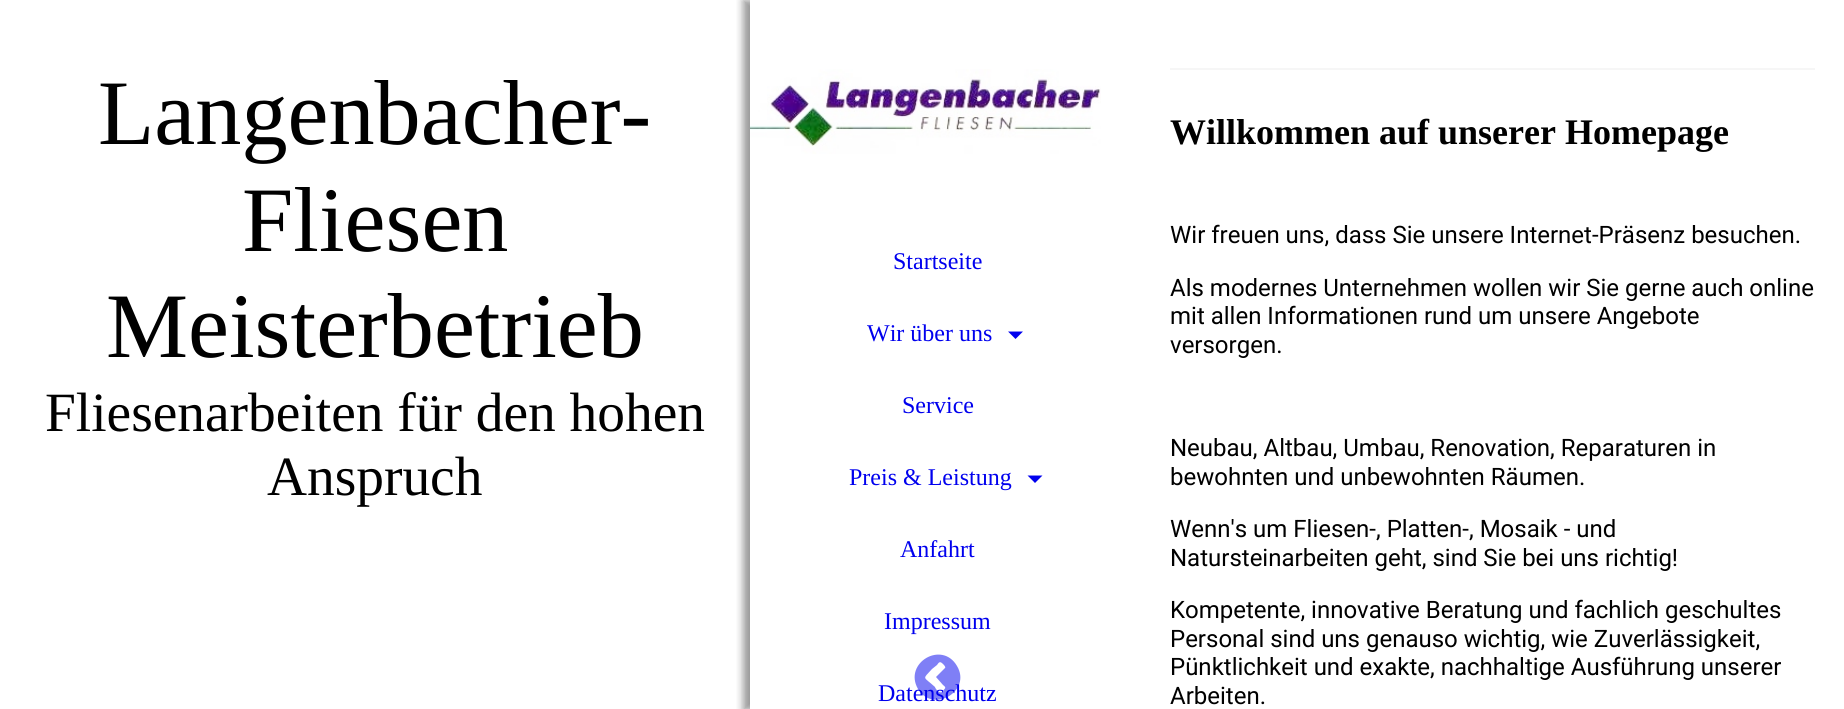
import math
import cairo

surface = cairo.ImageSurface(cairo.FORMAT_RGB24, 1844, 709)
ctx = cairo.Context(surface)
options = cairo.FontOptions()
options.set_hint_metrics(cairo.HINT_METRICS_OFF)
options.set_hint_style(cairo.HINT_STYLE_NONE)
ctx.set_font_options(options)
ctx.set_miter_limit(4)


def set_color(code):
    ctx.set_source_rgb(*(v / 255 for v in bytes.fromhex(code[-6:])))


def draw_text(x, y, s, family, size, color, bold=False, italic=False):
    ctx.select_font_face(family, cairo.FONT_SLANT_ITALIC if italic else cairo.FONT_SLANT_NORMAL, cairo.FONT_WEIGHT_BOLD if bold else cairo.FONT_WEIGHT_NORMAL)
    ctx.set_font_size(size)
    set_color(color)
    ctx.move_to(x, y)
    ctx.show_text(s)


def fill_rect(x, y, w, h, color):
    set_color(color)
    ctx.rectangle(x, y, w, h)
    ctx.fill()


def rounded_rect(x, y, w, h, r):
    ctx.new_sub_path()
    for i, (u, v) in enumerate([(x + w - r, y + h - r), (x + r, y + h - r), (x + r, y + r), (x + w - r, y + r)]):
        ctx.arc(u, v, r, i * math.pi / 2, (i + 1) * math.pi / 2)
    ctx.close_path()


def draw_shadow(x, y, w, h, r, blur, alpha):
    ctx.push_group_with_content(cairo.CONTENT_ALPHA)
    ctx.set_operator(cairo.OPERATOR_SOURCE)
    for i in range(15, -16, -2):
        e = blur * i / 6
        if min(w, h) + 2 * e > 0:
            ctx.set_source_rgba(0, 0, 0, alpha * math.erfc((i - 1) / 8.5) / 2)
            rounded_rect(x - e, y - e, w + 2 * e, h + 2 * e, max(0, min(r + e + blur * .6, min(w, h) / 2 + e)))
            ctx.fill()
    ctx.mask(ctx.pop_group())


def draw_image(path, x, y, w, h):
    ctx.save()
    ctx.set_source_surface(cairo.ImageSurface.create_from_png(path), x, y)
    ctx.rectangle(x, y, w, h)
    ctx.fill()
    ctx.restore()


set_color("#ffffff")
ctx.paint()
draw_text(98, 144, "Langenbacher-", "Liberation Serif", 92.25, "#000000")
draw_text(242, 251, "Fliesen", "Liberation Serif", 92.25, "#000000")
draw_text(106, 357, "Meisterbetrieb", "Liberation Serif", 92.25, "#000000")
draw_text(45, 431, "Fliesenarbeiten für den hohen", "Liberation Serif", 55.4, "#000000")
draw_text(267, 495, "Anspruch", "Liberation Serif", 55.4, "#000000")
ctx.save()
ctx.rectangle(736, 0, 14, 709)
ctx.clip()
set_color("#000000")
draw_shadow(743, 0, 375, 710, 0, 4, 0.4)
ctx.restore()
draw_image("assets/img1.png", 750, 69, 351, 85)
draw_text(893, 269, "Startseite", "Liberation Serif", 24, "#0000ee")
draw_text(867, 341, "Wir über uns", "Liberation Serif", 24, "#0000ee")
ctx.new_path()
ctx.move_to(1008, 331.5)
ctx.line_to(1023, 331.5)
ctx.line_to(1015.5, 339)
ctx.close_path()
ctx.fill()
draw_text(902, 413, "Service", "Liberation Serif", 24, "#0000ee")
draw_text(849, 485, "Preis & Leistung", "Liberation Serif", 24, "#0000ee")
ctx.new_path()
ctx.move_to(1027.5, 475.5)
ctx.line_to(1042.5, 475.5)
ctx.line_to(1035, 483)
ctx.close_path()
ctx.fill()
draw_text(900, 557, "Anfahrt", "Liberation Serif", 24, "#0000ee")
draw_text(884, 629, "Impressum", "Liberation Serif", 24, "#0000ee")
draw_text(878, 701, "Datenschutz", "Liberation Serif", 24, "#0000ee")
ctx.set_source_rgba(0, 0, 0.933, 0.5)
ctx.new_path()
ctx.move_to(942, 692)
ctx.curve_to(945, 688, 947, 688, 943, 685)
ctx.line_to(936, 677)
ctx.line_to(945, 668)
ctx.curve_to(946, 667, 944, 665, 943, 664)
ctx.curve_to(940, 661, 939, 662, 937, 665)
ctx.line_to(932, 669)
ctx.curve_to(922, 680, 923, 676, 935, 687)
ctx.curve_to(935, 688, 939, 694, 942, 692)
ctx.close_path()
ctx.move_to(957, 666)
ctx.curve_to(972, 691, 933, 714, 918, 689)
ctx.curve_to(903, 663, 942, 640, 957, 666)
ctx.close_path()
ctx.fill()
fill_rect(1170, 68, 645, 2, "#f6f6f6")
draw_text(1170, 144, "Willkommen auf unserer Homepage", "Liberation Serif", 36, "#000000", bold=True)
draw_text(1170, 243, "Wir freuen uns, dass Sie unsere Internet-Präsenz besuchen.", "Roboto", 24, "#000000")
draw_text(1170, 296, "Als modernes Unternehmen wollen wir Sie gerne auch online", "Roboto", 24, "#000000")
draw_text(1170, 324, "mit allen Informationen rund um unsere Angebote", "Roboto", 24, "#000000")
draw_text(1170, 353, "versorgen.", "Roboto", 24, "#000000")
draw_text(1170, 456, "Neubau, Altbau, Umbau, Renovation, Reparaturen in", "Roboto", 24, "#000000")
draw_text(1170, 485, "bewohnten und unbewohnten Räumen.", "Roboto", 24, "#000000")
draw_text(1170, 537, "Wenn's um Fliesen-, Platten-, Mosaik - und", "Roboto", 24, "#000000")
draw_text(1170, 566, "Natursteinarbeiten geht, sind Sie bei uns richtig!", "Roboto", 24, "#000000")
draw_text(1170, 618, "Kompetente, innovative Beratung und fachlich geschultes", "Roboto", 24, "#000000")
draw_text(1170, 647, "Personal sind uns genauso wichtig, wie Zuverlässigkeit,", "Roboto", 24, "#000000")
draw_text(1170, 675, "Pünktlichkeit und exakte, nachhaltige Ausführung unserer", "Roboto", 24, "#000000")
draw_text(1170, 704, "Arbeiten.", "Roboto", 24, "#000000")
surface.write_to_png("output.png")
